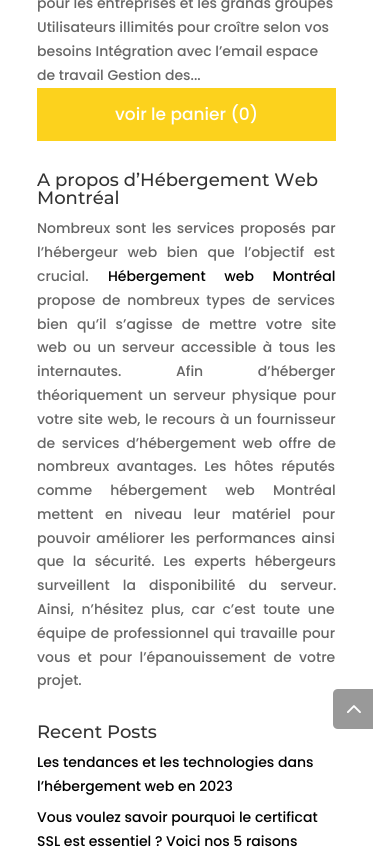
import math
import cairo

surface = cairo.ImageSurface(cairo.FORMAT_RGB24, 373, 854)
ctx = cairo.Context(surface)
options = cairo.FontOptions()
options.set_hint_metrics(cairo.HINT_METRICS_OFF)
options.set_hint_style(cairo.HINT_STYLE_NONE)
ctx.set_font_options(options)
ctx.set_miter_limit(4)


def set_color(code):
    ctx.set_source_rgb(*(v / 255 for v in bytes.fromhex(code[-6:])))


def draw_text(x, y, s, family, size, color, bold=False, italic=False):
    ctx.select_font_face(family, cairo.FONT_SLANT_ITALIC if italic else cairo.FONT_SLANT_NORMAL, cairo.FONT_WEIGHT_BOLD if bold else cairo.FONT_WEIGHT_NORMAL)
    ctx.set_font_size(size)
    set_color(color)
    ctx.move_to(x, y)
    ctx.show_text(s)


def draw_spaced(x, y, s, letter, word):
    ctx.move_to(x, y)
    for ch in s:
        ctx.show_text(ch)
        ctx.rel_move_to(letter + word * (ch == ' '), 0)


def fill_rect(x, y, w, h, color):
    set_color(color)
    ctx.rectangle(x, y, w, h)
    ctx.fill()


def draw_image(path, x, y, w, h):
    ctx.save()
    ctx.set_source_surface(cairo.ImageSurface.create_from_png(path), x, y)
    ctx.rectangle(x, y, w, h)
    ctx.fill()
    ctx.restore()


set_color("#ffffff")
ctx.paint()
draw_text(37, 8, "pour les entreprises et les grands groupes", "Poppins Medium", 14, "#666666")
draw_text(37, 32, "Utilisateurs illimités pour croître selon vos", "Poppins Medium", 14, "#666666")
draw_text(37, 56, "besoins Intégration avec l’email espace", "Poppins Medium", 14, "#666666")
draw_text(37, 80, "de travail Gestion des...", "Poppins Medium", 14, "#666666")
fill_rect(37, 88, 299, 53, "#fcd21d")
draw_text(115, 120, "voir le panier (0)", "Poppins Medium", 17, "#ffffff")
draw_text(37, 186, "A propos d’Hébergement Web", "Montserrat Medium", 18, "#333333")
draw_text(37, 204, "Montréal", "Montserrat Medium", 18, "#333333")
ctx.select_font_face("Poppins Medium")
ctx.set_font_size(14)
set_color("#666666")
draw_spaced(37, 233, "Nombreux sont les services proposés par", 0, 1.75)
draw_spaced(37, 257, "l’hébergeur web bien que l’objectif est", 0, 6)
draw_text(37, 281, "crucial.", "Poppins Medium", 14, "#666666")
set_color("#000000")
draw_spaced(108, 281, "Hébergement web Montréal", 0, 15)
set_color("#666666")
draw_spaced(37, 305, "propose de nombreux types de services", 0, 3.25)
draw_spaced(37, 329, "bien qu’il s’agisse de mettre votre site", 0, 5.5)
draw_spaced(37, 352, "web ou un serveur accessible à tous les", 0, 2.75)
draw_spaced(37, 376, "internautes. Afin d’héberger", 0, 51)
draw_spaced(37, 400, "théoriquement un serveur physique pour", 0, 2.5)
draw_spaced(37, 424, "votre site web, le recours à un fournisseur", 0, 1)
draw_spaced(37, 448, "de services d’hébergement web offre de", 0, 3)
draw_spaced(37, 471, "nombreux avantages. Les hôtes réputés", 0, 4)
draw_spaced(37, 495, "comme hébergement web Montréal", 0, 14.5)
draw_spaced(37, 519, "mettent en niveau leur matériel pour", 0, 7.75)
draw_spaced(37, 543, "pouvoir améliorer les performances ainsi", 0, 2)
draw_spaced(37, 566, "que la sécurité. Les experts hébergeurs", 0, 5)
draw_spaced(37, 590, "surveillent la disponibilité du serveur.", 0, 9.5)
draw_spaced(37, 614, "Ainsi, n’hésitez plus, car c’est toute une", 0, 4)
draw_spaced(37, 638, "équipe de professionnel qui travaille pour", 0, 1)
draw_spaced(37, 662, "vous et pour l’épanouissement de votre", 0, 3.75)
draw_text(37, 685, "projet.", "Poppins Medium", 14, "#666666")
draw_text(37, 738, "Recent Posts", "Montserrat Medium", 18, "#333333")
draw_text(37, 767, "Les tendances et les technologies dans", "Poppins Medium", 14, "#000000")
draw_text(37, 791, "l’hébergement web en 2023", "Poppins Medium", 14, "#000000")
draw_text(37, 822, "Vous voulez savoir pourquoi le certificat", "Poppins Medium", 14, "#000000")
draw_text(37, 846, "SSL est essentiel ? Voici nos 5 raisons", "Poppins Medium", 14, "#000000")
set_color("#999999")
ctx.new_path()
ctx.move_to(338, 689)
ctx.line_to(373, 689)
ctx.line_to(373, 729)
ctx.line_to(338, 729)
ctx.curve_to(335, 729, 333, 727, 333, 724)
ctx.line_to(333, 694)
ctx.curve_to(333, 691, 335, 689, 338, 689)
ctx.close_path()
ctx.fill()
draw_image("assets/img1.png", 347, 705, 14, 8)
surface.write_to_png("output.png")
